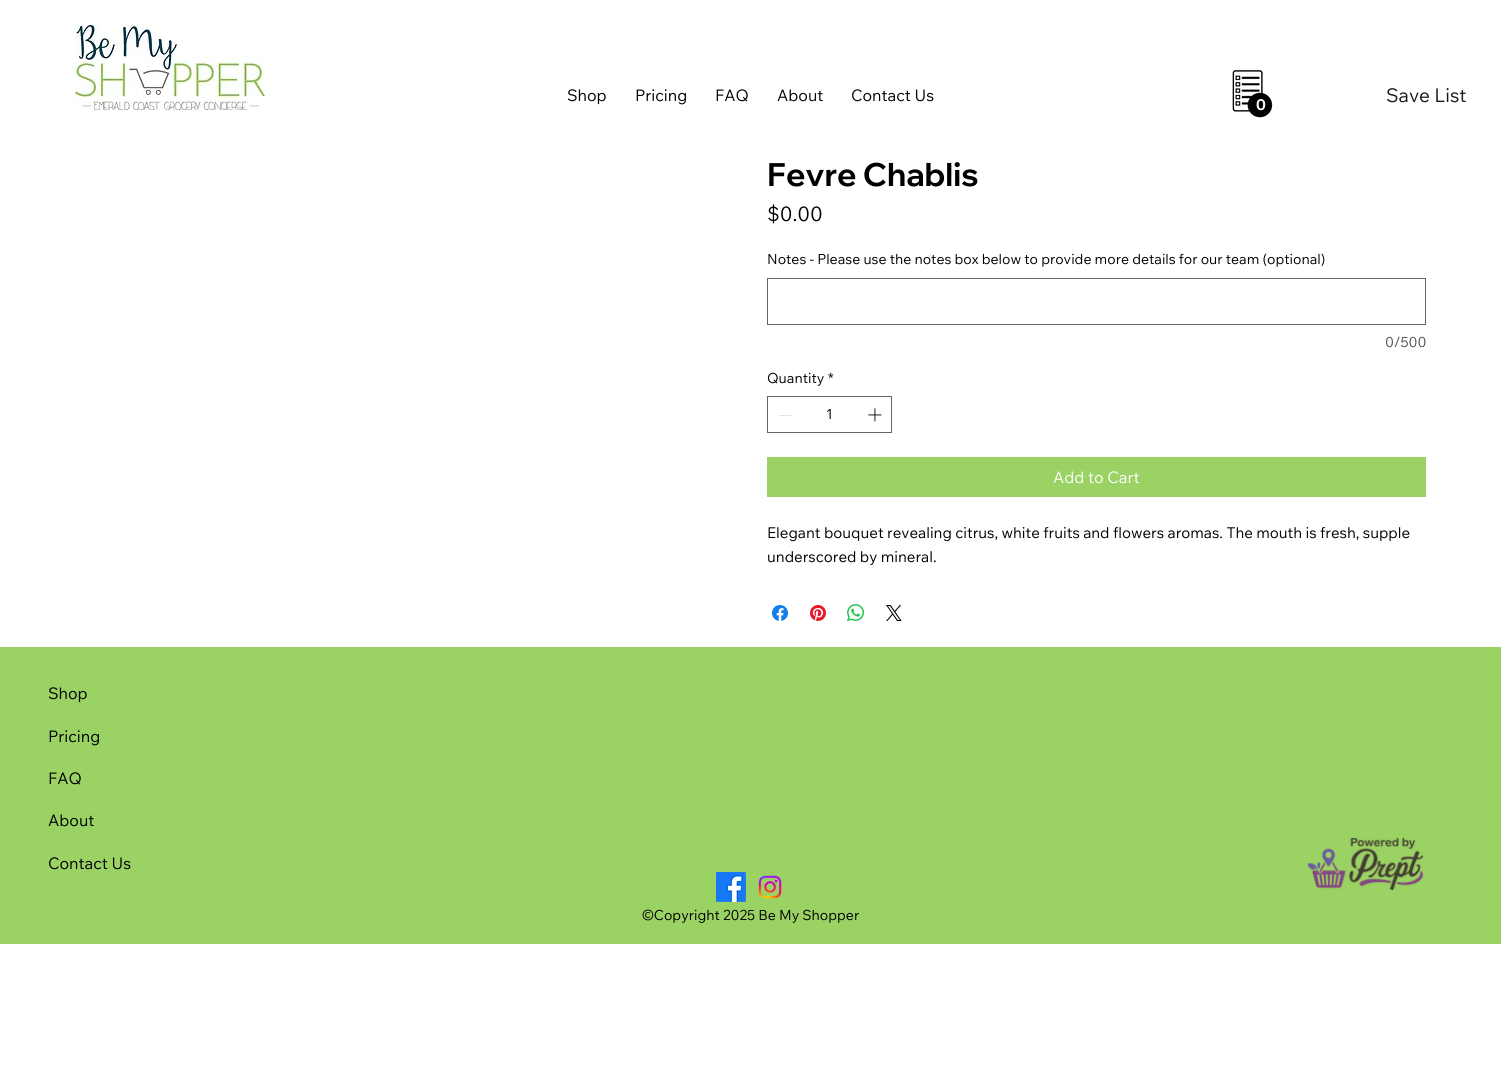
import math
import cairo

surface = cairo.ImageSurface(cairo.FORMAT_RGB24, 1501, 1077)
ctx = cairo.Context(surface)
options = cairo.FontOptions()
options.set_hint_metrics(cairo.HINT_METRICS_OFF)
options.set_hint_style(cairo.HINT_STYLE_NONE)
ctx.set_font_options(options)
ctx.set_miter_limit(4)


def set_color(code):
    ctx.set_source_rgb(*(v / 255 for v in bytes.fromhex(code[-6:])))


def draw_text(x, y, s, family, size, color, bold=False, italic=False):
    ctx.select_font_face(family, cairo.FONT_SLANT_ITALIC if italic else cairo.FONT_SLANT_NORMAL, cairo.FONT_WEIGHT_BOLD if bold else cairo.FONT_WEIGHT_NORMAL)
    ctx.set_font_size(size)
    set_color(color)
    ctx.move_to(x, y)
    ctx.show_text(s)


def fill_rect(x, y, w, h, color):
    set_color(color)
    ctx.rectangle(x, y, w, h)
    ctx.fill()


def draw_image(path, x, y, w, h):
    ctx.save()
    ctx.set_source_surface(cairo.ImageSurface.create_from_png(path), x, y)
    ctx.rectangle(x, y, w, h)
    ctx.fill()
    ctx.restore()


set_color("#ffffff")
ctx.paint()
draw_image("assets/img1.png", 75, 25, 190, 85)
draw_text(567, 101, "Shop", "Wix Madefor Text", 16, "#000000")
draw_text(635, 101, "Pricing", "Wix Madefor Text", 16, "#000000")
draw_text(715, 101, "FAQ", "Wix Madefor Text", 16, "#000000")
draw_text(777, 101, "About", "Wix Madefor Text", 16, "#000000")
draw_text(851, 101, "Contact Us", "Wix Madefor Text", 16, "#000000")
draw_image("assets/img2.png", 1232, 70, 41, 48)
draw_text(1256, 110, "0", "Wix Madefor Display", 15, "#ffffff", bold=True)
draw_text(1386, 102, "Save List", "Wix Madefor Text", 19, "#181818")
draw_text(767, 186, "Fevre Chablis", "Wix Madefor Display", 32, "#000000", bold=True)
draw_text(767, 221, "$0.00", "Wix Madefor Text", 20, "#000000")
draw_text(767, 264, "Notes - Please use the notes box below to provide more details for our team (optional)", "Wix Madefor Text", 14, "#000000")
ctx.rectangle(767.5, 278.5, 658, 46)
set_color("#666666")
ctx.set_line_width(1)
ctx.stroke()
draw_text(1385, 347, "0/500", "Wix Madefor Text", 14, "#4f4f4f")
draw_text(767, 383, "Quantity", "Wix Madefor Text", 14, "#000000")
draw_text(828, 383, "*", "Wix Madefor Text", 14, "#000000")
ctx.rectangle(767.5, 396.5, 124, 36)
set_color("#666666")
ctx.stroke()
fill_rect(779, 415, 13, 1, "#e3e3e3")
draw_text(826, 419, "1", "Wix Madefor Text", 14, "#000000")
draw_image("assets/img3.png", 868, 408, 14, 14)
fill_rect(767, 457, 659, 40, "#9ad264")
draw_text(1053, 483, "Add to Cart", "Wix Madefor Text", 16, "#ffffff")
draw_text(767, 538, "Elegant bouquet revealing citrus, white fruits and flowers aromas. The mouth is fresh, supple", "Wix Madefor Text", 15, "#000000")
draw_text(767, 562, "underscored by mineral.", "Wix Madefor Text", 15, "#000000")
draw_image("assets/img4.png", 772, 605, 16, 16)
draw_image("assets/img5.png", 810, 605, 16, 16)
draw_image("assets/img6.png", 847, 604, 17, 17)
draw_image("assets/img7.png", 886, 605, 16, 16)
fill_rect(0, 647, 1501, 297, "#9ad264")
draw_text(48, 699, "Shop", "Wix Madefor Text", 16, "#000000")
draw_text(48, 742, "Pricing", "Wix Madefor Text", 16, "#000000")
draw_text(48, 784, "FAQ", "Wix Madefor Text", 16, "#000000")
draw_text(48, 826, "About", "Wix Madefor Text", 16, "#000000")
draw_text(48, 869, "Contact Us", "Wix Madefor Text", 16, "#000000")
draw_image("assets/img8.png", 1307, 837, 117, 54)
draw_image("assets/img9.png", 716, 872, 30, 30)
draw_image("assets/img10.png", 758, 875, 24, 24)
draw_text(642, 920, "©Copyright 2025 Be My Shopper", "Wix Madefor Text", 14, "#000000")
surface.write_to_png("output.png")
